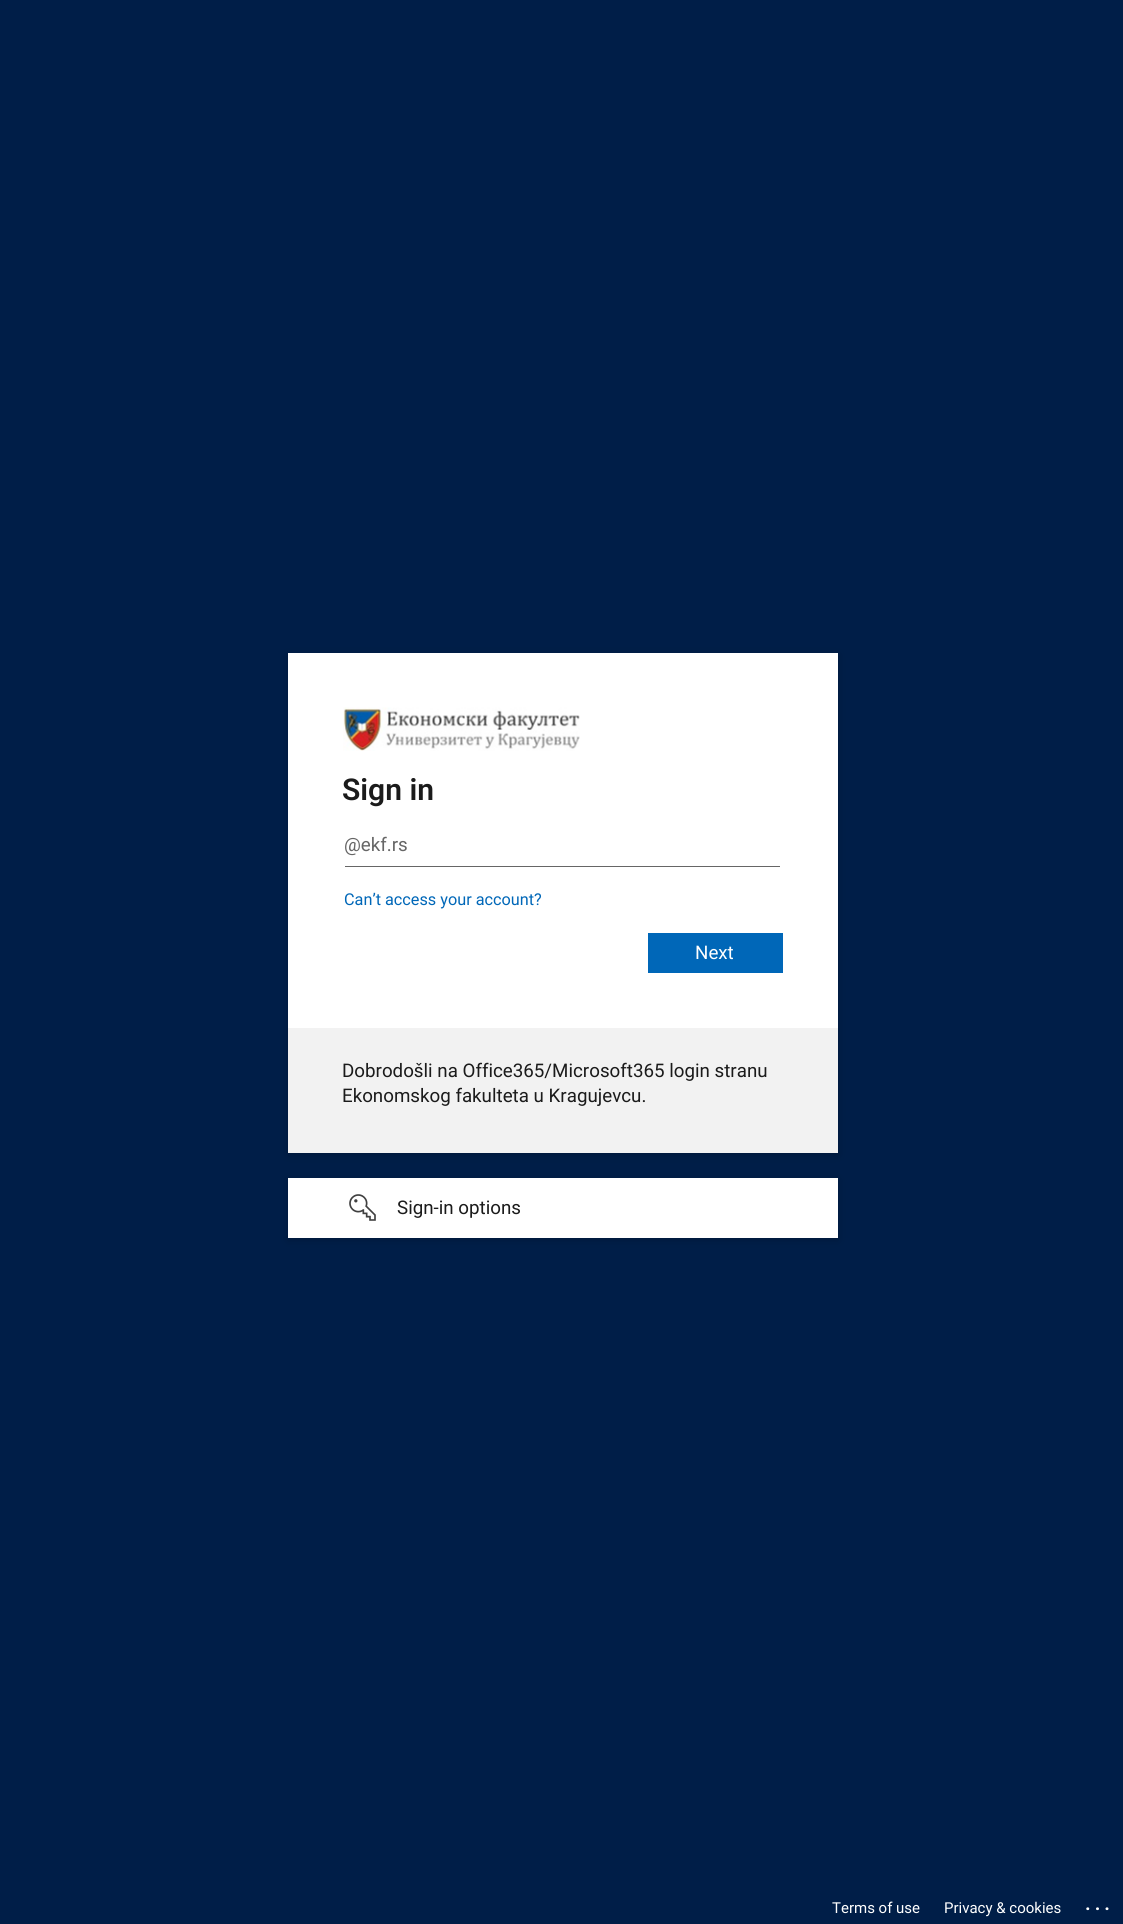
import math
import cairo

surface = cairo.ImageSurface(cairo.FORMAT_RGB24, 1123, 1924)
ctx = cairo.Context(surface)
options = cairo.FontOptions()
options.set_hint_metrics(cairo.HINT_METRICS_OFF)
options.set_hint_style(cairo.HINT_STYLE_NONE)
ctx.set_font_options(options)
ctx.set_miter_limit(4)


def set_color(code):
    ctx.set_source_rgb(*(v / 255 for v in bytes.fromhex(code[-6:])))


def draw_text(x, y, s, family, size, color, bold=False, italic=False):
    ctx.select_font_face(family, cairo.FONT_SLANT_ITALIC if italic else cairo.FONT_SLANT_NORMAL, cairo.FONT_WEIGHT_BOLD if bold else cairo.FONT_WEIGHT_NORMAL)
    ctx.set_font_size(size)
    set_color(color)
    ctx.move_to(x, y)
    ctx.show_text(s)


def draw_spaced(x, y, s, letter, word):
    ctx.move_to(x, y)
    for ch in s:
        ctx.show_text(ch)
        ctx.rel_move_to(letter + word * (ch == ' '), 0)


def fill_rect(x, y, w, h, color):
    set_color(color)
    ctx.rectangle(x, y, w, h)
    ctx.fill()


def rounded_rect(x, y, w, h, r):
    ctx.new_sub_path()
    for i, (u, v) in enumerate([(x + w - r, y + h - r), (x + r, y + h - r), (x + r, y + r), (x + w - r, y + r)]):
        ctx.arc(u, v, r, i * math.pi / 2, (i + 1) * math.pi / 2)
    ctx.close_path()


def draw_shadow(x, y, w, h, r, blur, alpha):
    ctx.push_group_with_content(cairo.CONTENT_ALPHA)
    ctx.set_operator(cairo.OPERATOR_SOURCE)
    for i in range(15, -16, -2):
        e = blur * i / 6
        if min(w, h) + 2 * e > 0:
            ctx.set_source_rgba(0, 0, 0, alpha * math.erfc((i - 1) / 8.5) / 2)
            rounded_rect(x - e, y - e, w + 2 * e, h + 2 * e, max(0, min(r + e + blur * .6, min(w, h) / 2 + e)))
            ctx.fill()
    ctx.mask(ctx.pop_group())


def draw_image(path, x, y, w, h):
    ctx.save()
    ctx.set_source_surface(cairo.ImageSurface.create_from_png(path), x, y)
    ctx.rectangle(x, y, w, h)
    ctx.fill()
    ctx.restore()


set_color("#001e48")
ctx.paint()
set_color("#000000")
draw_shadow(288, 655, 550, 500, 0, 4, 0.2)
fill_rect(288, 653, 550, 375, "#ffffff")
draw_image("assets/img1.png", 343, 707, 237, 44)
draw_text(342, 800, "Sign in", "Roboto SemiBold", 30, "#1b1b1b")
fill_rect(345, 866, 435, 1, "#666666")
draw_text(344, 851, "@ekf.rs", "Roboto", 18.75, "#666666")
draw_text(344, 905, "Can’t access your account?", "Roboto", 16.25, "#0067b8")
fill_rect(648, 933, 135, 40, "#0067b8")
draw_text(695, 959, "Next", "Roboto", 18.75, "#ffffff")
fill_rect(288, 1028, 550, 125, "#f2f2f2")
draw_text(342, 1077, "Dobrodošli na Office365/Microsoft365 login stranu", "Roboto", 18.75, "#1b1b1b")
draw_text(342, 1102, "Ekonomskog fakulteta u Kragujevcu.", "Roboto", 18.75, "#1b1b1b")
set_color("#000000")
draw_shadow(288, 1180, 550, 60, 0, 4, 0.2)
fill_rect(288, 1178, 550, 60, "#ffffff")
draw_image("assets/img2.png", 349, 1194, 27, 27)
draw_text(397, 1214, "Sign-in options", "Roboto", 18.75, "#1b1b1b")
draw_text(832, 1913, "Terms of use", "Roboto", 15, "#ffffff")
draw_text(944, 1913, "Privacy & cookies", "Roboto", 15, "#ffffff")
ctx.select_font_face("Roboto SemiBold")
ctx.set_font_size(20)
draw_spaced(1085, 1910, "...", 4, 0)
surface.write_to_png("output.png")
